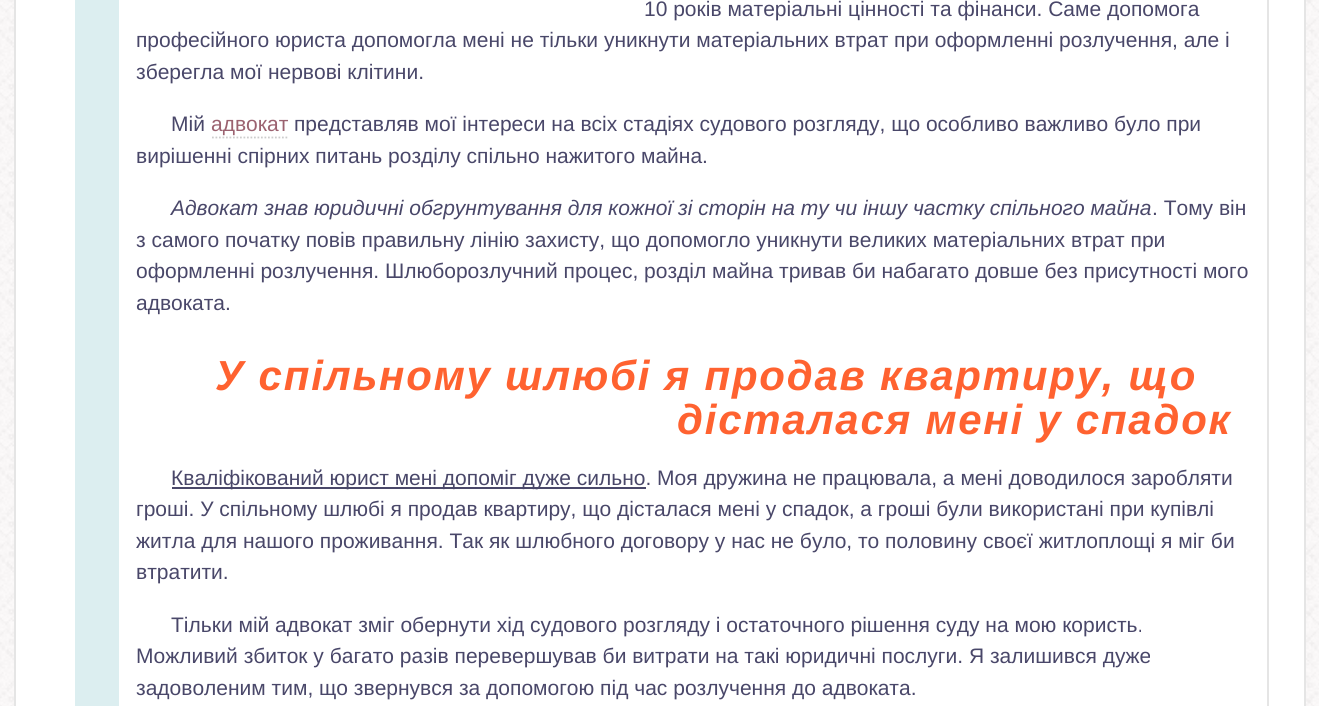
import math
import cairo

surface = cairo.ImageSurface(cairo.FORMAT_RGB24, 1319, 706)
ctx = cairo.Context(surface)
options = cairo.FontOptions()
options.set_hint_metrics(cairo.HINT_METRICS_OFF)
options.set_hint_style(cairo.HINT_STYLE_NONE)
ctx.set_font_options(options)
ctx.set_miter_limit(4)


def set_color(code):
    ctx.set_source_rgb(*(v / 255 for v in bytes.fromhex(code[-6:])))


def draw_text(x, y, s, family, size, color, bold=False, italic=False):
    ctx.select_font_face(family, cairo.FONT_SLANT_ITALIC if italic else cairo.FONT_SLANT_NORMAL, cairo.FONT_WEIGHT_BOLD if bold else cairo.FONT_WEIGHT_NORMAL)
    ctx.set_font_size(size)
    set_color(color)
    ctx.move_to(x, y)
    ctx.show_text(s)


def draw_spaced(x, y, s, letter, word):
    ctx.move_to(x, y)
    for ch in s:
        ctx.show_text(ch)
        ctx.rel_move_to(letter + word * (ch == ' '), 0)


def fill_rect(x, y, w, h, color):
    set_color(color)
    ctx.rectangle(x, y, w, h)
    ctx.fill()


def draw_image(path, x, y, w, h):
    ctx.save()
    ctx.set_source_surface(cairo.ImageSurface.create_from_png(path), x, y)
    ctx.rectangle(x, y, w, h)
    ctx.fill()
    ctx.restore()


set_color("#ffffff")
ctx.paint()
draw_image("assets/img1.png", 0, 0, 1319, 706)
fill_rect(16, 0, 1288, 706, "#ffffff")
fill_rect(1304, 0, 2, 706, "#e5e5e5")
fill_rect(14, 0, 2, 706, "#e5e5e5")
ctx.new_path()
ctx.move_to(1269, 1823)
ctx.curve_to(1268, 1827, 1266, 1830, 1264, 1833)
ctx.line_to(1262, 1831)
ctx.curve_to(1265, 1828, 1267, 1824, 1267, 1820)
ctx.line_to(1267, -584)
ctx.curve_to(1267, -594, 1260, -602, 1251, -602)
ctx.curve_to(1260, -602, 1267, -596, 1269, -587)
ctx.close_path()
ctx.fill()
set_color("#dceef0")
ctx.new_path()
ctx.move_to(93, -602)
ctx.line_to(119, -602)
ctx.line_to(119, 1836)
ctx.line_to(87, 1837)
ctx.curve_to(81, 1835, 76, 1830, 75, 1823)
ctx.line_to(75, -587)
ctx.curve_to(77, -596, 84, -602, 93, -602)
ctx.close_path()
ctx.fill()
draw_text(644, 16, "10 років матеріальні цінності та фінанси. Саме допомога", "Liberation Sans", 21, "#494769")
draw_text(136, 47, "професійного юриста допомогла мені не тільки уникнути матеріальних втрат при оформленні розлучення, але і", "Liberation Sans", 21, "#494769")
draw_text(136, 79, "зберегла мої нервові клітини.", "Liberation Sans", 21, "#494769")
draw_text(171, 131, "Мій", "Liberation Sans", 21, "#494769")
draw_text(211, 131, "адвокат", "Liberation Sans", 21, "#9b6270")
ctx.new_path()
ctx.move_to(212, 137.5)
ctx.line_to(289, 137.5)
set_color("#cccccc")
ctx.set_line_width(1.8)
ctx.set_dash([1.75, 1.75])
ctx.stroke()
draw_text(294, 131, "представляв мої інтереси на всіх стадіях судового розгляду, що особливо важливо було при", "Liberation Sans", 21, "#494769")
draw_text(136, 163, "вирішенні спірних питань розділу спільно нажитого майна.", "Liberation Sans", 21, "#494769")
draw_text(171, 215, "Адвокат знав юридичні обгрунтування для кожної зі сторін на ту чи іншу частку спільного майна", "Liberation Sans", 21, "#494769", italic=True)
draw_text(1152, 215, ". Тому він", "Liberation Sans", 21, "#494769")
draw_text(136, 247, "з самого початку повів правильну лінію захисту, що допомогло уникнути великих матеріальних втрат при", "Liberation Sans", 21, "#494769")
draw_text(136, 278, "оформленні розлучення. Шлюборозлучний процес, розділ майна тривав би набагато довше без присутності мого", "Liberation Sans", 21, "#494769")
draw_text(136, 310, "адвоката.", "Liberation Sans", 21, "#494769")
ctx.select_font_face("Liberation Sans", cairo.FONT_SLANT_ITALIC, cairo.FONT_WEIGHT_BOLD)
ctx.set_font_size(42)
set_color("#ff6230")
draw_spaced(215, 390, "У спільному шлюбі я продав квартиру, що", 1.75, 0)
draw_spaced(677, 434, "дісталася мені у спадок", 1.75, 0)
fill_rect(172, 487, 474, 2, "#494769")
draw_text(171, 485, "Кваліфікований юрист мені допоміг дуже сильно. Моя дружина не працювала, а мені доводилося заробляти", "Liberation Sans", 21, "#494769")
draw_text(136, 516, "гроші. У спільному шлюбі я продав квартиру, що дісталася мені у спадок, а гроші були використані при купівлі", "Liberation Sans", 21, "#494769")
draw_text(136, 548, "житла для нашого проживання. Так як шлюбного договору у нас не було, то половину своєї житлоплощі я міг би", "Liberation Sans", 21, "#494769")
draw_text(136, 579, "втратити.", "Liberation Sans", 21, "#494769")
draw_text(171, 632, "Тільки мій адвокат зміг обернути хід судового розгляду і остаточного рішення суду на мою користь.", "Liberation Sans", 21, "#494769")
draw_text(136, 663, "Можливий збиток у багато разів перевершував би витрати на такі юридичні послуги. Я залишився дуже", "Liberation Sans", 21, "#494769")
draw_text(136, 695, "задоволеним тим, що звернувся за допомогою під час розлучення до адвоката.", "Liberation Sans", 21, "#494769")
surface.write_to_png("output.png")
